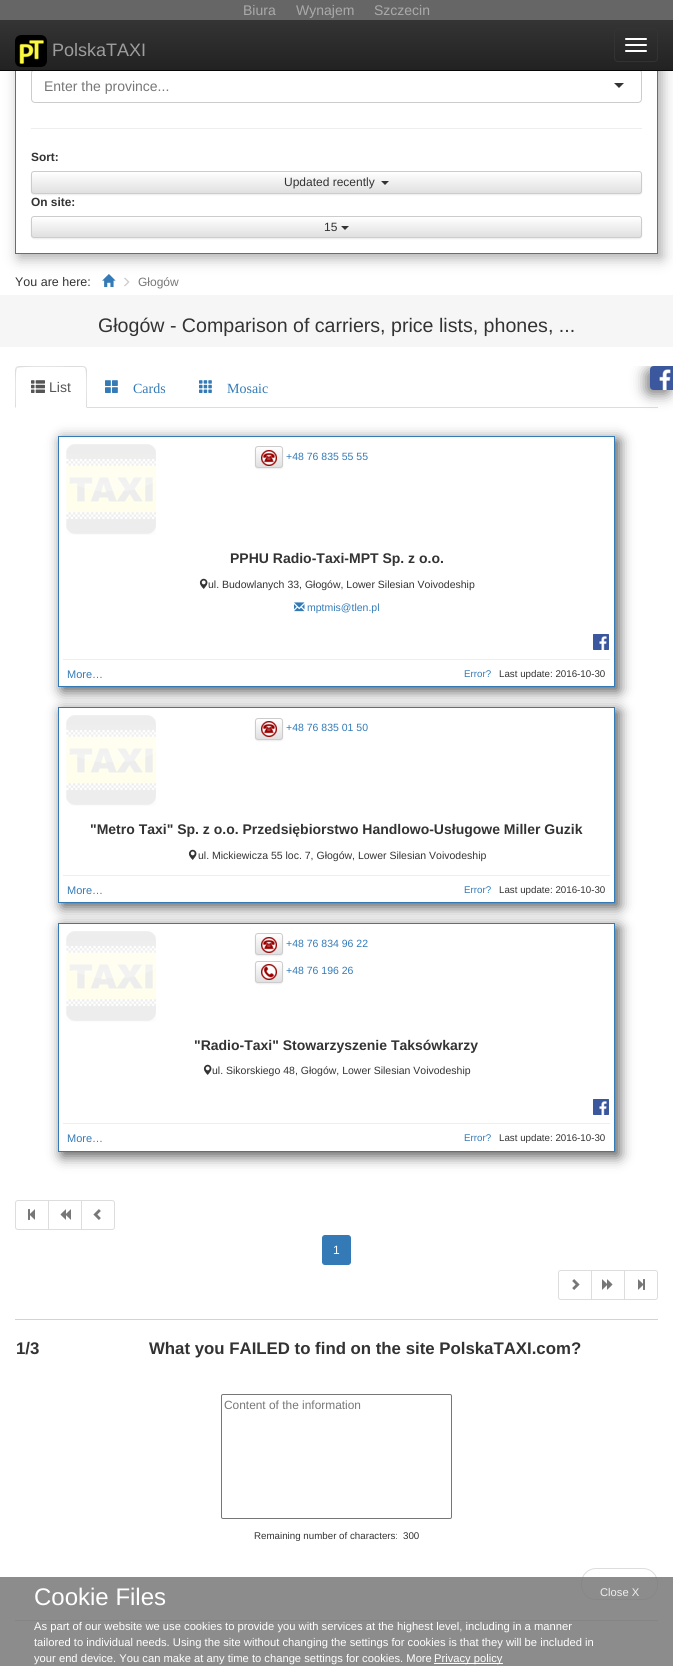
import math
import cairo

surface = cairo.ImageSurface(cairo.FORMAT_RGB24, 673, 1666)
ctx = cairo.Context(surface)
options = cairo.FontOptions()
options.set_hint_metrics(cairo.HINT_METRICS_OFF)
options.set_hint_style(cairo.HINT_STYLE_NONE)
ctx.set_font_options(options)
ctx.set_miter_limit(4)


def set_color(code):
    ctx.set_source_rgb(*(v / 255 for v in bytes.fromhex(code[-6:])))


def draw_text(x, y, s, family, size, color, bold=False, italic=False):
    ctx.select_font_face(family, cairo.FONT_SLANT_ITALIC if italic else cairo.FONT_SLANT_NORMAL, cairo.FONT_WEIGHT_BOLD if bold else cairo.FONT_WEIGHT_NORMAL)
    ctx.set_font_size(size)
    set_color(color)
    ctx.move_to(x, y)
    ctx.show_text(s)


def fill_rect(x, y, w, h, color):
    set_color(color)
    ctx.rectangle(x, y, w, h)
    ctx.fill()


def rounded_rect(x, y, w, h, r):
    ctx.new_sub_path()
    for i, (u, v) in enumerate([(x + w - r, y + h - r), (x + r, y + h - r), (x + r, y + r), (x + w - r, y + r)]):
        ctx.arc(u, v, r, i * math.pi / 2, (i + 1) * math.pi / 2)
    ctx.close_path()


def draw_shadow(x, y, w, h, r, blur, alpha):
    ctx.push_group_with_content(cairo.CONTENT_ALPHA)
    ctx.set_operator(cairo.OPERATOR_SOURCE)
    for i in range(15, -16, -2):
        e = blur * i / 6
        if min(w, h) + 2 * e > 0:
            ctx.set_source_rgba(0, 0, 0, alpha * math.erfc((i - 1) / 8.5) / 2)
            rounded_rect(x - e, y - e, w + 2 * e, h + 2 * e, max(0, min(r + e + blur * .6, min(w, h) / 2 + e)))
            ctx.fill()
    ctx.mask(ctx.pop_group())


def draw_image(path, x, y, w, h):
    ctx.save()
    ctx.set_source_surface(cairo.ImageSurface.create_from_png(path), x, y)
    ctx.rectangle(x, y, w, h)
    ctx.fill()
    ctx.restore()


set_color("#ffffff")
ctx.paint()
ctx.save()
ctx.set_fill_rule(cairo.FILL_RULE_EVEN_ODD)
ctx.new_path()
ctx.move_to(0, 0)
ctx.line_to(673, 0)
ctx.line_to(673, 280)
ctx.line_to(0, 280)
ctx.close_path()
ctx.move_to(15, -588)
ctx.line_to(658, -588)
ctx.line_to(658, 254)
ctx.line_to(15, 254)
ctx.close_path()
ctx.clip()
set_color("#aaaaaa")
draw_shadow(19, -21, 643, 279, 0, 7, 1)
ctx.restore()
ctx.rectangle(15.5, -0.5, 642, 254)
set_color("#337ab7")
ctx.set_line_width(1)
ctx.stroke()
rounded_rect(31.5, 69.5, 610, 33, 3.5)
set_color("#cccccc")
ctx.stroke()
gradient = cairo.LinearGradient(337, 0, 337, 70)
gradient.add_color_stop_rgba(0, 0.235, 0.235, 0.235, 1)
gradient.add_color_stop_rgba(1, 0.133, 0.133, 0.133, 1)
ctx.set_source(gradient)
ctx.rectangle(0, 20, 673, 50)
ctx.fill()
fill_rect(0, 70, 673, 1, "#080808")
fill_rect(0, 0, 673, 20, "#666666")
draw_text(243, 15, "Biura", "Liberation Sans", 14, "#aaaaaa")
draw_text(296, 15, "Wynajem", "Liberation Sans", 14, "#aaaaaa")
draw_text(374, 15, "Szczecin", "Liberation Sans", 14, "#aaaaaa")
draw_image("assets/img1.png", 15, 35, 32, 32)
draw_text(52, 56, "PolskaTAXI", "Liberation Sans", 18, "#9d9d9d")
rounded_rect(614.5, 28.5, 43, 33, 3.5)
set_color("#333333")
ctx.stroke()
set_color("#ffffff")
rounded_rect(625, 38, 22, 2, 1)
ctx.fill()
rounded_rect(625, 44, 22, 2, 1)
ctx.fill()
rounded_rect(625, 50, 22, 2, 1)
ctx.fill()
draw_text(44, 91, "Enter the province...", "Liberation Sans", 14, "#777777")
set_color("#333333")
ctx.new_path()
ctx.move_to(614, 83)
ctx.line_to(624, 83)
ctx.line_to(619, 88)
ctx.close_path()
ctx.fill()
fill_rect(31, 128, 611, 1, "#eeeeee")
draw_text(31, 161, "Sort:", "Liberation Sans", 11.9, "#333333", bold=True)
set_color("#000000")
draw_shadow(31, 172, 611, 23, 3, 0.5, 0.07)
ctx.save()
rounded_rect(31, 171, 611, 23, 3)
ctx.clip()
gradient = cairo.LinearGradient(337, 172, 337, 193)
gradient.add_color_stop_rgba(0, 1, 1, 1, 1)
gradient.add_color_stop_rgba(1, 0.878, 0.878, 0.878, 1)
ctx.set_source(gradient)
ctx.rectangle(31, 172, 611, 21)
ctx.fill()
ctx.restore()
rounded_rect(31.5, 171.5, 610, 22, 2.5)
set_color("#cccccc")
ctx.stroke()
draw_text(284, 186, "Updated recently", "Liberation Sans", 12, "#333333")
ctx.new_path()
ctx.move_to(381, 181)
ctx.line_to(389, 181)
ctx.line_to(385, 185)
ctx.close_path()
ctx.fill()
draw_text(31, 206, "On site:", "Liberation Sans", 11.9, "#333333", bold=True)
set_color("#000000")
draw_shadow(31, 217, 611, 22, 3, 0.5, 0.07)
ctx.save()
rounded_rect(31, 216, 611, 22, 3)
ctx.clip()
gradient = cairo.LinearGradient(337, 217, 337, 237)
gradient.add_color_stop_rgba(0, 1, 1, 1, 1)
gradient.add_color_stop_rgba(1, 0.878, 0.878, 0.878, 1)
ctx.set_source(gradient)
ctx.rectangle(31, 217, 611, 20)
ctx.fill()
ctx.restore()
rounded_rect(31.5, 216.5, 610, 21, 2.5)
set_color("#cccccc")
ctx.stroke()
draw_text(324, 231, "15", "Liberation Sans", 12, "#333333")
ctx.new_path()
ctx.move_to(341, 226)
ctx.line_to(349, 226)
ctx.line_to(345, 230)
ctx.close_path()
ctx.fill()
draw_text(15, 286, "You are here:", "Liberation Sans", 12.5, "#333333")
draw_image("assets/img2.png", 102, 274, 14, 13)
draw_image("assets/img3.png", 124, 277, 6, 10)
draw_text(138, 286, "Głogów", "Liberation Sans", 12, "#777777")
fill_rect(0, 295, 673, 52, "#f6f6f6")
draw_text(98, 332, "Głogów - Comparison of carriers, price lists, phones, ...", "Liberation Sans", 19.6, "#333333")
fill_rect(87, 407, 571, 1, "#dddddd")
ctx.new_path()
ctx.move_to(19, 366)
ctx.line_to(16, 367)
ctx.line_to(17, 368)
ctx.curve_to(19, 366, 66, 367, 72, 367)
ctx.line_to(83, 367)
ctx.line_to(85, 368)
ctx.line_to(86, 367)
ctx.line_to(83, 366)
ctx.close_path()
ctx.fill()
ctx.new_path()
ctx.move_to(87, 408)
ctx.line_to(87, 370)
ctx.curve_to(87, 369, 86, 368, 86, 367)
ctx.line_to(85, 368)
ctx.curve_to(87, 370, 86, 402, 86, 407)
ctx.close_path()
ctx.fill()
ctx.new_path()
ctx.move_to(15, 408)
ctx.line_to(16, 407)
ctx.curve_to(16, 402, 15, 370, 17, 368)
ctx.line_to(16, 367)
ctx.line_to(15, 370)
ctx.close_path()
ctx.fill()
draw_image("assets/img4.png", 31, 380, 14, 13)
draw_text(49, 392, "List", "Liberation Sans", 14, "#555555")
draw_image("assets/img5.png", 105, 380, 13, 13)
draw_text(133, 393, "Cards", "Liberation Serif", 14, "#337ab7")
draw_image("assets/img6.png", 199, 380, 13, 13)
draw_text(227, 393, "Mosaic", "Liberation Serif", 14, "#337ab7")
ctx.save()
ctx.set_fill_rule(cairo.FILL_RULE_EVEN_ODD)
ctx.new_path()
ctx.move_to(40, 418)
ctx.line_to(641, 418)
ctx.line_to(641, 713)
ctx.line_to(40, 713)
ctx.close_path()
ctx.move_to(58, 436)
ctx.line_to(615, 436)
ctx.line_to(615, 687)
ctx.line_to(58, 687)
ctx.close_path()
ctx.clip()
set_color("#555555")
draw_shadow(62, 440, 557, 251, 0, 7, 1)
ctx.restore()
ctx.rectangle(58.5, 436.5, 556, 250)
ctx.stroke()
draw_image("assets/img7.png", 66, 444, 90, 91)
set_color("#000000")
draw_shadow(255, 447, 28, 22, 3, 0.5, 0.07)
ctx.save()
rounded_rect(255, 446, 28, 22, 3)
ctx.clip()
gradient = cairo.LinearGradient(269, 447, 269, 467)
gradient.add_color_stop_rgba(0, 1, 1, 1, 1)
gradient.add_color_stop_rgba(1, 0.878, 0.878, 0.878, 1)
ctx.set_source(gradient)
ctx.rectangle(255, 447, 28, 20)
ctx.fill()
ctx.restore()
rounded_rect(255.5, 446.5, 27, 21, 2.5)
set_color("#cccccc")
ctx.stroke()
draw_image("assets/img8.png", 261, 450, 16, 16)
draw_text(286, 460, "+48 76 835 55 55", "Liberation Sans", 10.5, "#337ab7")
draw_text(230, 563, "PPHU Radio-Taxi-MPT Sp. z o.o.", "Liberation Sans", 14, "#333333", bold=True)
draw_image("assets/img9.png", 199, 578, 9, 11)
draw_text(208, 588, "ul. Budowlanych 33, Głogów, Lower Silesian Voivodeship", "Liberation Sans", 10.5, "#333333")
draw_image("assets/img10.png", 294, 602, 11, 10)
draw_text(307, 611, "mptmis@tlen.pl", "Liberation Sans", 10.5, "#337ab7")
draw_image("assets/img11.png", 593, 634, 16, 16)
fill_rect(63, 659, 547, 1, "#eeeeee")
draw_text(67, 678, "More…", "Liberation Sans", 11, "#337ab7")
draw_text(464, 677, "Error?", "Liberation Sans", 9.75, "#337ab7")
draw_text(499, 677, "Last update: 2016-10-30", "Liberation Sans", 9.75, "#333333")
ctx.save()
ctx.set_fill_rule(cairo.FILL_RULE_EVEN_ODD)
ctx.new_path()
ctx.move_to(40, 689)
ctx.line_to(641, 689)
ctx.line_to(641, 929)
ctx.line_to(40, 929)
ctx.close_path()
ctx.move_to(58, 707)
ctx.line_to(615, 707)
ctx.line_to(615, 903)
ctx.line_to(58, 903)
ctx.close_path()
ctx.clip()
set_color("#555555")
draw_shadow(62, 711, 557, 196, 0, 7, 1)
ctx.restore()
ctx.rectangle(58.5, 707.5, 556, 195)
set_color("#337ab7")
ctx.stroke()
draw_image("assets/img7.png", 66, 715, 90, 91)
set_color("#000000")
draw_shadow(255, 719, 28, 22, 3, 0.5, 0.07)
ctx.save()
rounded_rect(255, 718, 28, 22, 3)
ctx.clip()
gradient = cairo.LinearGradient(269, 719, 269, 739)
gradient.add_color_stop_rgba(0, 1, 1, 1, 1)
gradient.add_color_stop_rgba(1, 0.878, 0.878, 0.878, 1)
ctx.set_source(gradient)
ctx.rectangle(255, 719, 28, 20)
ctx.fill()
ctx.restore()
rounded_rect(255.5, 718.5, 27, 21, 2.5)
set_color("#cccccc")
ctx.stroke()
draw_image("assets/img12.png", 261, 721, 16, 16)
draw_text(286, 731, "+48 76 835 01 50", "Liberation Sans", 10.5, "#337ab7")
draw_text(90, 834, "\"Metro Taxi\" Sp. z o.o. Przedsiębiorstwo Handlowo-Usługowe Miller Guzik", "Liberation Sans", 14, "#333333", bold=True)
draw_image("assets/img9.png", 188, 849, 9, 11)
draw_text(198, 859, "ul. Mickiewicza 55 loc. 7, Głogów, Lower Silesian Voivodeship", "Liberation Sans", 10.5, "#333333")
fill_rect(63, 875, 547, 1, "#eeeeee")
draw_text(67, 894, "More…", "Liberation Sans", 11, "#337ab7")
draw_text(464, 893, "Error?", "Liberation Sans", 9.75, "#337ab7")
draw_text(499, 893, "Last update: 2016-10-30", "Liberation Sans", 9.75, "#333333")
ctx.save()
ctx.set_fill_rule(cairo.FILL_RULE_EVEN_ODD)
ctx.new_path()
ctx.move_to(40, 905)
ctx.line_to(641, 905)
ctx.line_to(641, 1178)
ctx.line_to(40, 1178)
ctx.close_path()
ctx.move_to(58, 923)
ctx.line_to(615, 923)
ctx.line_to(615, 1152)
ctx.line_to(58, 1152)
ctx.close_path()
ctx.clip()
set_color("#555555")
draw_shadow(62, 927, 557, 229, 0, 7, 1)
ctx.restore()
ctx.rectangle(58.5, 923.5, 556, 228)
set_color("#337ab7")
ctx.stroke()
draw_image("assets/img7.png", 66, 931, 90, 91)
set_color("#000000")
draw_shadow(255, 934, 28, 22, 3, 0.5, 0.07)
ctx.save()
rounded_rect(255, 933, 28, 22, 3)
ctx.clip()
gradient = cairo.LinearGradient(269, 934, 269, 954)
gradient.add_color_stop_rgba(0, 1, 1, 1, 1)
gradient.add_color_stop_rgba(1, 0.878, 0.878, 0.878, 1)
ctx.set_source(gradient)
ctx.rectangle(255, 934, 28, 20)
ctx.fill()
ctx.restore()
rounded_rect(255.5, 933.5, 27, 21, 2.5)
set_color("#cccccc")
ctx.stroke()
draw_image("assets/img8.png", 261, 937, 16, 16)
draw_text(286, 947, "+48 76 834 96 22", "Liberation Sans", 10.5, "#337ab7")
set_color("#000000")
draw_shadow(255, 962, 28, 22, 3, 0.5, 0.07)
ctx.save()
rounded_rect(255, 961, 28, 22, 3)
ctx.clip()
gradient = cairo.LinearGradient(269, 962, 269, 982)
gradient.add_color_stop_rgba(0, 1, 1, 1, 1)
gradient.add_color_stop_rgba(1, 0.878, 0.878, 0.878, 1)
ctx.set_source(gradient)
ctx.rectangle(255, 962, 28, 20)
ctx.fill()
ctx.restore()
rounded_rect(255.5, 961.5, 27, 21, 2.5)
set_color("#cccccc")
ctx.stroke()
draw_image("assets/img13.png", 261, 964, 16, 16)
draw_text(286, 974, "+48 76 196 26", "Liberation Sans", 10.5, "#337ab7")
draw_text(194, 1050, "\"Radio-Taxi\" Stowarzyszenie Taksówkarzy", "Liberation Sans", 14, "#333333", bold=True)
draw_image("assets/img9.png", 203, 1064, 9, 11)
draw_text(212, 1074, "ul. Sikorskiego 48, Głogów, Lower Silesian Voivodeship", "Liberation Sans", 10.5, "#333333")
draw_image("assets/img11.png", 593, 1099, 16, 16)
fill_rect(63, 1123, 547, 1, "#eeeeee")
draw_text(67, 1142, "More…", "Liberation Sans", 11, "#337ab7")
draw_text(464, 1141, "Error?", "Liberation Sans", 9.75, "#337ab7")
draw_text(499, 1141, "Last update: 2016-10-30", "Liberation Sans", 9.75, "#333333")
ctx.save()
ctx.rectangle(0, 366, 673, 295)
ctx.clip()
set_color("#777777")
draw_shadow(646, 370, 24, 24, 4, 7, 1)
ctx.restore()
draw_image("assets/img14.png", 650, 366, 23, 24)
ctx.new_path()
ctx.move_to(18, 1200.5)
ctx.line_to(48.5, 1200.5)
ctx.line_to(48.5, 1229.5)
ctx.line_to(18, 1229.5)
ctx.curve_to(16.5, 1229.5, 15.5, 1228.5, 15.5, 1227)
ctx.line_to(15.5, 1203)
ctx.curve_to(15.5, 1201.5, 16.5, 1200.5, 18, 1200.5)
ctx.close_path()
set_color("#dddddd")
ctx.stroke()
draw_image("assets/img15.png", 28, 1209, 7, 11)
ctx.rectangle(48.5, 1200.5, 33, 29)
ctx.stroke()
draw_image("assets/img16.png", 60, 1209, 11, 11)
set_color("#ffffff")
ctx.new_path()
ctx.move_to(81.5, 1200.5)
ctx.line_to(112, 1200.5)
ctx.curve_to(113.5, 1200.5, 114.5, 1201.5, 114.5, 1203)
ctx.line_to(114.5, 1227)
ctx.curve_to(114.5, 1228.5, 113.5, 1229.5, 112, 1229.5)
ctx.line_to(81.5, 1229.5)
ctx.close_path()
ctx.fill_preserve()
set_color("#dddddd")
ctx.stroke()
draw_image("assets/img17.png", 93, 1209, 8, 11)
set_color("#337ab7")
rounded_rect(322.5, 1235.5, 28, 29, 2.5)
ctx.fill_preserve()
ctx.stroke()
draw_text(333, 1254, "1", "Liberation Sans", 12, "#ffffff")
ctx.new_path()
ctx.move_to(561, 1270.5)
ctx.line_to(591.5, 1270.5)
ctx.line_to(591.5, 1299.5)
ctx.line_to(561, 1299.5)
ctx.curve_to(559.5, 1299.5, 558.5, 1298.5, 558.5, 1297)
ctx.line_to(558.5, 1273)
ctx.curve_to(558.5, 1271.5, 559.5, 1270.5, 561, 1270.5)
ctx.close_path()
set_color("#dddddd")
ctx.stroke()
draw_image("assets/img18.png", 572, 1279, 8, 11)
ctx.rectangle(591.5, 1270.5, 33, 29)
ctx.stroke()
draw_image("assets/img19.png", 602, 1279, 11, 11)
set_color("#ffffff")
ctx.new_path()
ctx.move_to(624.5, 1270.5)
ctx.line_to(655, 1270.5)
ctx.curve_to(656.5, 1270.5, 657.5, 1271.5, 657.5, 1273)
ctx.line_to(657.5, 1297)
ctx.curve_to(657.5, 1298.5, 656.5, 1299.5, 655, 1299.5)
ctx.line_to(624.5, 1299.5)
ctx.close_path()
ctx.fill_preserve()
set_color("#dddddd")
ctx.stroke()
draw_image("assets/img20.png", 638, 1279, 7, 11)
fill_rect(15, 1319, 643, 1, "#d3d3d3")
fill_rect(15, 1620, 643, 1, "#d3d3d3")
draw_text(16, 1354, "1/3", "Liberation Sans", 16.8, "#333333", bold=True)
draw_text(149, 1354, "What you FAILED to find on the site PolskaTAXI.com?", "Liberation Sans", 16.8, "#333333", bold=True)
rounded_rect(221.5, 1394.5, 230, 124, 1.5)
set_color("#767676")
ctx.stroke()
draw_text(224, 1409, "Content of the information", "Liberation Sans", 11.9, "#777777")
draw_text(254, 1539, "Remaining number of characters:", "Liberation Sans", 9.75, "#333333")
draw_text(403, 1539, "300", "Liberation Sans", 9.75, "#333333")
rounded_rect(581.5, 1568.5, 76, 31, 14.5)
set_color("#dddddd")
ctx.stroke()
ctx.set_source_rgba(0.471, 0.471, 0.471, 0.85)
ctx.rectangle(0, 1577, 673, 89)
ctx.fill()
draw_text(34, 1605, "Cookie Files", "Liberation Sans", 24, "#ffffff")
draw_text(34, 1630, "As part of our website we use cookies to provide you with services at the highest level, including in a manner", "Liberation Sans", 11.2, "#ffffff")
draw_text(34, 1646, "tailored to individual needs. Using the site without changing the settings for cookies is that they will be included in", "Liberation Sans", 11.2, "#ffffff")
draw_text(34, 1662, "your end device. You can make at any time to change settings for cookies. More", "Liberation Sans", 11.2, "#ffffff")
fill_rect(434, 1663, 69, 1, "#ffffff")
draw_text(434, 1662, "Privacy policy", "Liberation Sans", 11.2, "#ffffff")
draw_text(600, 1596, "Close X", "Liberation Sans", 11.2, "#eeeeee")
surface.write_to_png("output.png")
